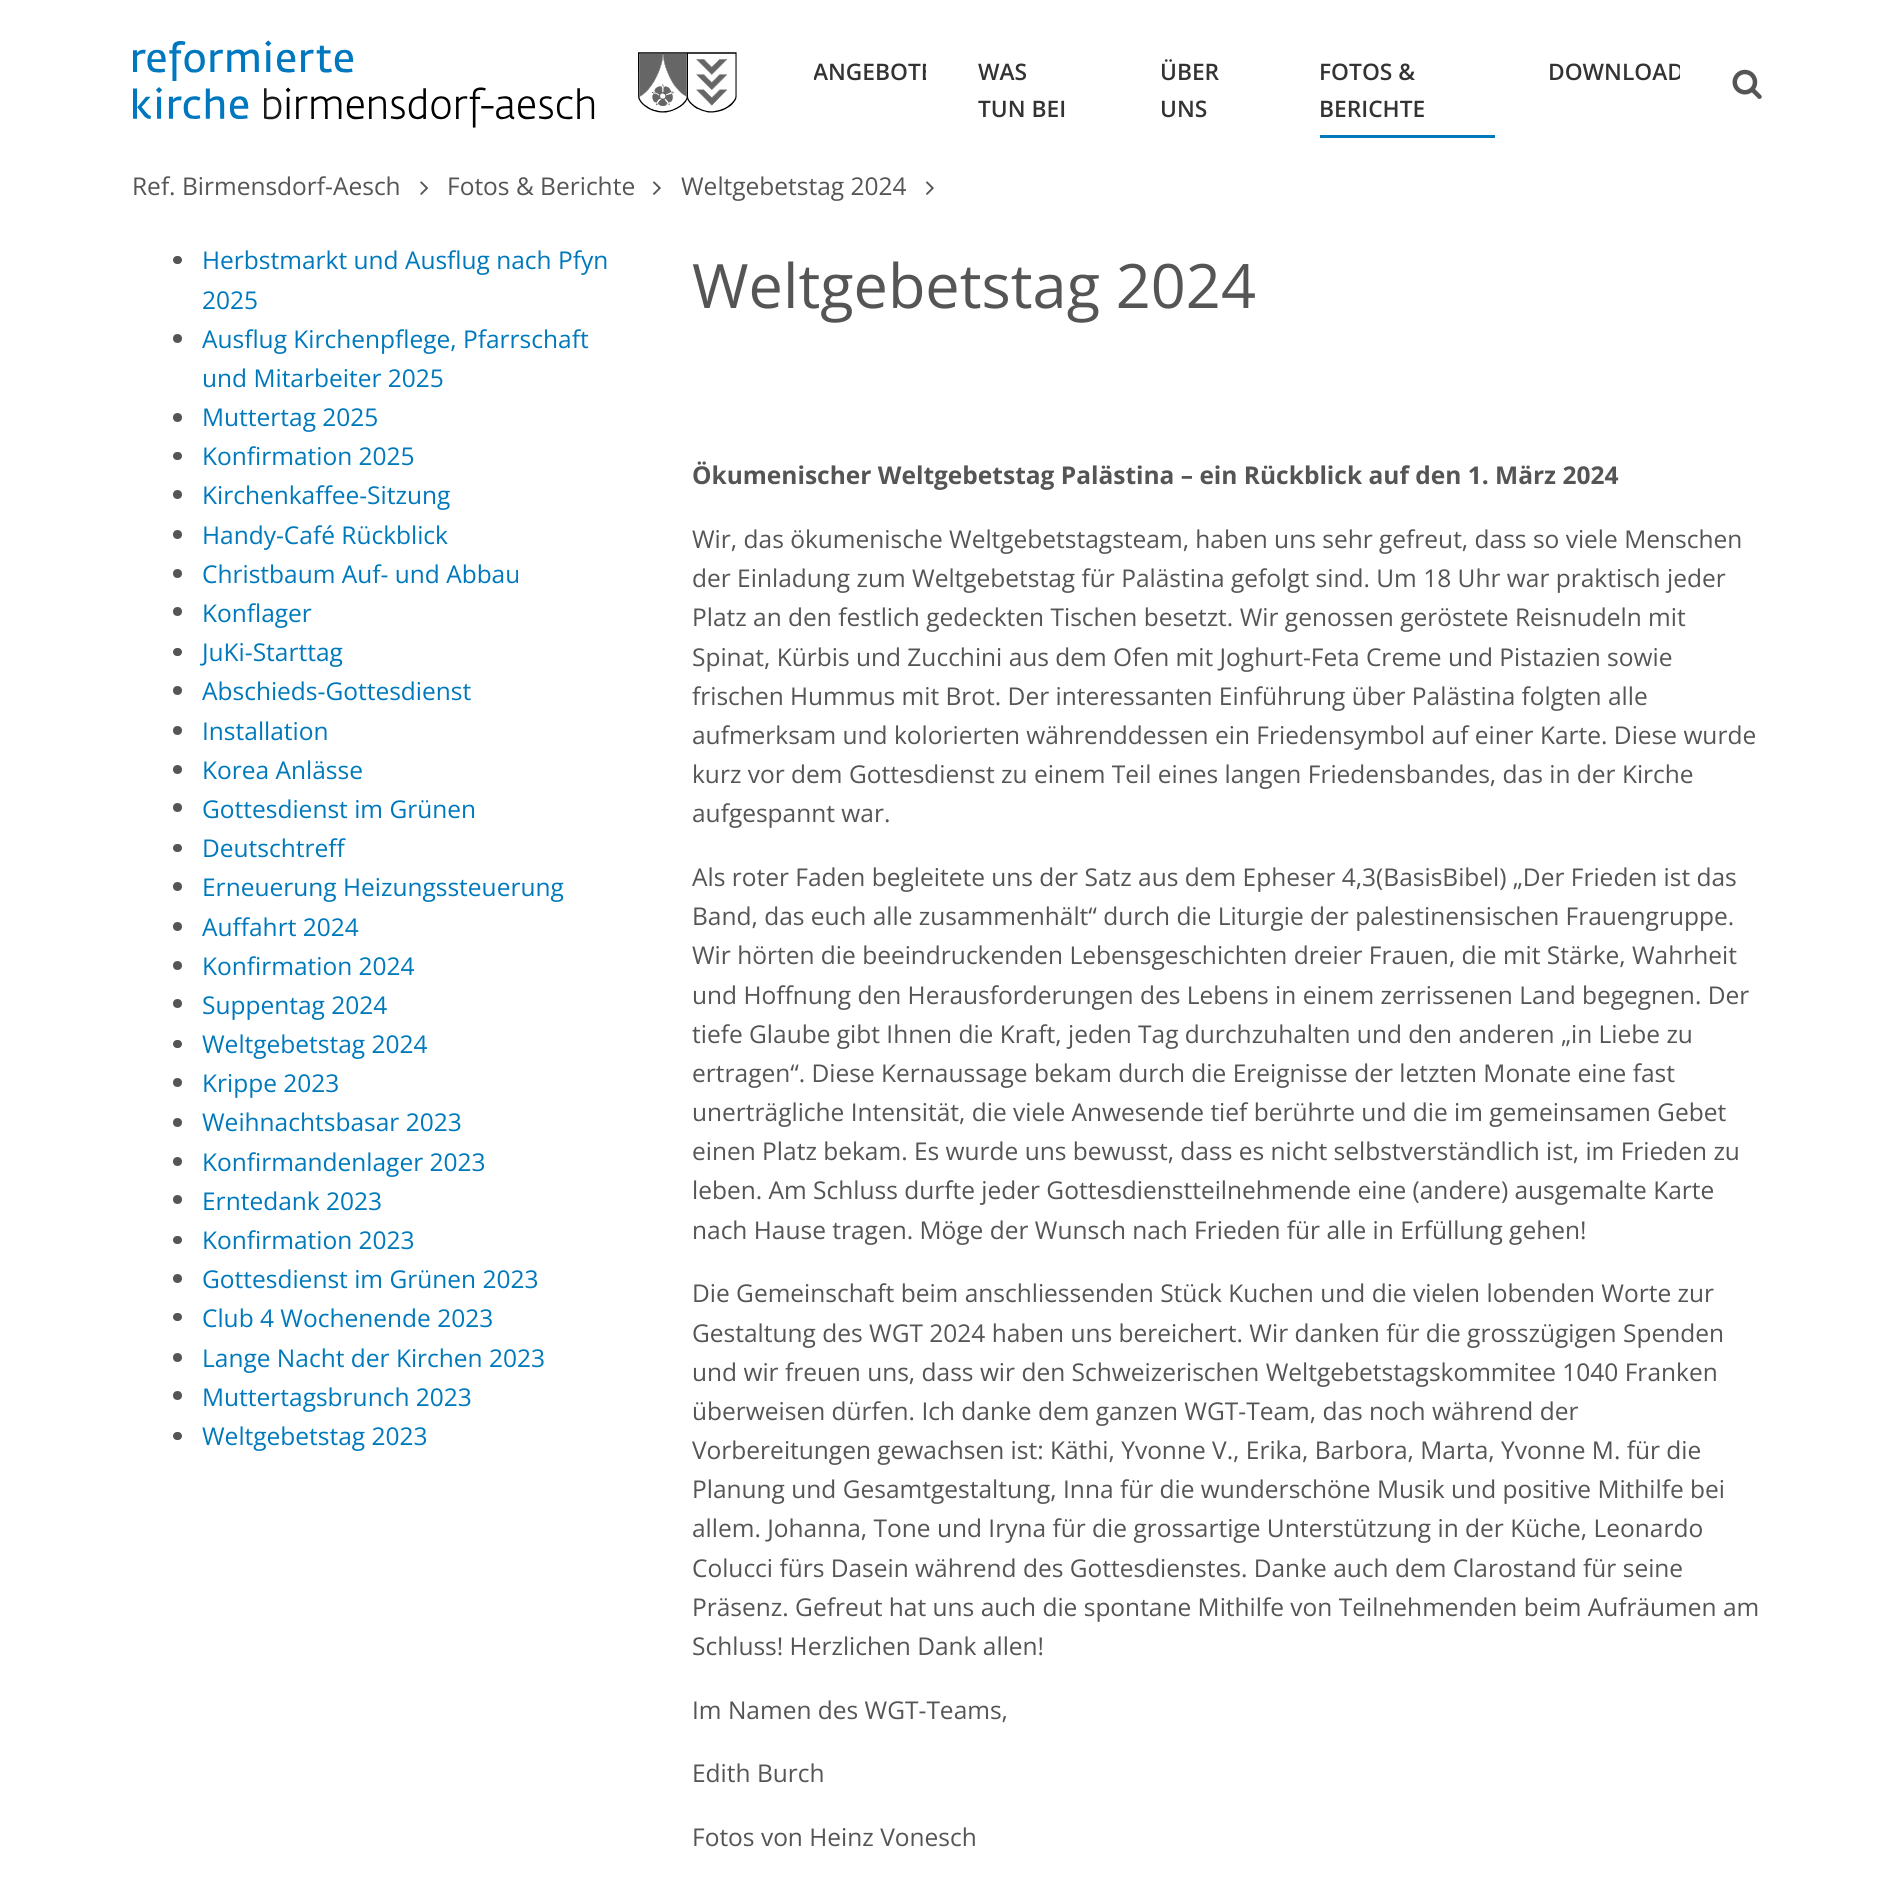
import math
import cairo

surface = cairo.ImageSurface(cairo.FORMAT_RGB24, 1891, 1887)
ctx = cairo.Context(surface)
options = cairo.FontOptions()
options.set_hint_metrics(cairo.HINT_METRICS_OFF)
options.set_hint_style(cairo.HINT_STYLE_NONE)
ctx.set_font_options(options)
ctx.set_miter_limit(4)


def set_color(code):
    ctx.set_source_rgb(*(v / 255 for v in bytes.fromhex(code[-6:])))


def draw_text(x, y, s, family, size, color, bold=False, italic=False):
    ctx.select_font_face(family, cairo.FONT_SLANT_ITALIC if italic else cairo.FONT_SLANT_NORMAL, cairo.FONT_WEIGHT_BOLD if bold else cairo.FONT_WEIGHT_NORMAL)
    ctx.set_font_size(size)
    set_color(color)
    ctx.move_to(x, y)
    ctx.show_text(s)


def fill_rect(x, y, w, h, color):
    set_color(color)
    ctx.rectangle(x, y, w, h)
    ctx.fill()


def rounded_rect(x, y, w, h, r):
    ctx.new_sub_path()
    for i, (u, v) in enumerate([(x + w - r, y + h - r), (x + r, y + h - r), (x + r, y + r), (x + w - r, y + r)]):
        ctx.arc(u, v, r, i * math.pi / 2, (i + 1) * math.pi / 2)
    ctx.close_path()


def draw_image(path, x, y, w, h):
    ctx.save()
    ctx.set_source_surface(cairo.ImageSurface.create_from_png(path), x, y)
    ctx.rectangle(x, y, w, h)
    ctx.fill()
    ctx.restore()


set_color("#ffffff")
ctx.paint()
draw_image("assets/img1.png", 133, 40, 604, 88)
ctx.save()
ctx.rectangle(814, 47, 112, 91)
ctx.clip()
draw_text(813, 80, "ANGEBOTE", "Open Sans SemiBold", 22.75, "#333333")
ctx.restore()
draw_text(978, 80, "WAS", "Open Sans SemiBold", 22.75, "#333333")
draw_text(978, 117, "TUN BEI", "Open Sans SemiBold", 22.75, "#333333")
draw_text(1160, 80, "ÜBER", "Open Sans SemiBold", 22.75, "#333333")
draw_text(1160, 117, "UNS", "Open Sans SemiBold", 22.75, "#333333")
fill_rect(1320, 135, 175, 3, "#0079bc")
draw_text(1319, 80, "FOTOS &", "Open Sans SemiBold", 22.75, "#333333")
draw_text(1319, 117, "BERICHTE", "Open Sans SemiBold", 22.75, "#333333")
ctx.save()
ctx.rectangle(1547, 47, 133, 91)
ctx.clip()
draw_text(1548, 80, "DOWNLOAD", "Open Sans SemiBold", 22.75, "#333333")
ctx.restore()
draw_image("assets/img2.png", 1732, 69, 30, 30)
draw_text(132, 195, "Ref. Birmensdorf-Aesch", "Open Sans", 24.5, "#555555")
draw_image("assets/img3.png", 420, 181, 9, 14)
draw_text(447, 195, "Fotos & Berichte", "Open Sans", 24.5, "#555555")
draw_image("assets/img4.png", 653, 181, 8, 14)
draw_text(681, 195, "Weltgebetstag 2024", "Open Sans", 24.5, "#555555")
draw_image("assets/img4.png", 926, 181, 8, 14)
rounded_rect(173, 256, 9, 8, 4)
ctx.fill()
draw_text(202, 269, "Herbstmarkt und Ausflug nach Pfyn", "Open Sans", 24.5, "#0079bc")
draw_text(202, 309, "2025", "Open Sans", 24.5, "#0079bc")
set_color("#555555")
ctx.new_path()
ctx.arc(177.5, 338.5, 4.5, 0, 2 * math.pi)
ctx.fill()
draw_text(202, 348, "Ausflug Kirchenpflege, Pfarrschaft", "Open Sans", 24.5, "#0079bc")
draw_text(202, 387, "und Mitarbeiter 2025", "Open Sans", 24.5, "#0079bc")
set_color("#555555")
ctx.new_path()
ctx.arc(177.5, 417.5, 4.5, 0, 2 * math.pi)
ctx.fill()
draw_text(202, 426, "Muttertag 2025", "Open Sans", 24.5, "#0079bc")
set_color("#555555")
rounded_rect(173, 452, 9, 8, 4)
ctx.fill()
draw_text(202, 465, "Konfirmation 2025", "Open Sans", 24.5, "#0079bc")
set_color("#555555")
ctx.new_path()
ctx.arc(177.5, 494.5, 4.5, 0, 2 * math.pi)
ctx.fill()
draw_text(202, 504, "Kirchenkaffee-Sitzung", "Open Sans", 24.5, "#0079bc")
set_color("#555555")
ctx.new_path()
ctx.arc(177.5, 534.5, 4.5, 0, 2 * math.pi)
ctx.fill()
draw_text(202, 544, "Handy-Café Rückblick", "Open Sans", 24.5, "#0079bc")
set_color("#555555")
ctx.new_path()
ctx.arc(177.5, 573.5, 4.5, 0, 2 * math.pi)
ctx.fill()
draw_text(202, 583, "Christbaum Auf- und Abbau", "Open Sans", 24.5, "#0079bc")
set_color("#555555")
ctx.new_path()
ctx.arc(177.5, 611.5, 4.5, 0, 2 * math.pi)
ctx.fill()
draw_text(202, 622, "Konflager", "Open Sans", 24.5, "#0079bc")
set_color("#555555")
rounded_rect(173, 648, 9, 8, 4)
ctx.fill()
draw_text(202, 661, "JuKi-Starttag", "Open Sans", 24.5, "#0079bc")
set_color("#555555")
ctx.new_path()
ctx.arc(177.5, 690.5, 4.5, 0, 2 * math.pi)
ctx.fill()
draw_text(202, 700, "Abschieds-Gottesdienst", "Open Sans", 24.5, "#0079bc")
set_color("#555555")
ctx.new_path()
ctx.arc(177.5, 730.5, 4.5, 0, 2 * math.pi)
ctx.fill()
draw_text(202, 740, "Installation", "Open Sans", 24.5, "#0079bc")
set_color("#555555")
ctx.new_path()
ctx.arc(177.5, 769.5, 4.5, 0, 2 * math.pi)
ctx.fill()
draw_text(202, 779, "Korea Anlässe", "Open Sans", 24.5, "#0079bc")
set_color("#555555")
ctx.new_path()
ctx.arc(177.5, 807.5, 4.5, 0, 2 * math.pi)
ctx.fill()
draw_text(202, 818, "Gottesdienst im Grünen", "Open Sans", 24.5, "#0079bc")
set_color("#555555")
rounded_rect(173, 844, 9, 8, 4)
ctx.fill()
draw_text(202, 857, "Deutschtreff", "Open Sans", 24.5, "#0079bc")
set_color("#555555")
ctx.new_path()
ctx.arc(177.5, 886.5, 4.5, 0, 2 * math.pi)
ctx.fill()
draw_text(202, 896, "Erneuerung Heizungssteuerung", "Open Sans", 24.5, "#0079bc")
set_color("#555555")
ctx.new_path()
ctx.arc(177.5, 926.5, 4.5, 0, 2 * math.pi)
ctx.fill()
draw_text(202, 936, "Auffahrt 2024", "Open Sans", 24.5, "#0079bc")
set_color("#555555")
ctx.new_path()
ctx.arc(177.5, 965.5, 4.5, 0, 2 * math.pi)
ctx.fill()
draw_text(202, 975, "Konfirmation 2024", "Open Sans", 24.5, "#0079bc")
set_color("#555555")
ctx.new_path()
ctx.arc(177.5, 1003.5, 4.5, 0, 2 * math.pi)
ctx.fill()
draw_text(202, 1014, "Suppentag 2024", "Open Sans", 24.5, "#0079bc")
set_color("#555555")
rounded_rect(173, 1040, 9, 8, 4)
ctx.fill()
draw_text(202, 1053, "Weltgebetstag 2024", "Open Sans", 24.5, "#0079bc")
set_color("#555555")
ctx.new_path()
ctx.arc(177.5, 1082.5, 4.5, 0, 2 * math.pi)
ctx.fill()
draw_text(202, 1092, "Krippe 2023", "Open Sans", 24.5, "#0079bc")
set_color("#555555")
ctx.new_path()
ctx.arc(177.5, 1122.5, 4.5, 0, 2 * math.pi)
ctx.fill()
draw_text(202, 1131, "Weihnachtsbasar 2023", "Open Sans", 24.5, "#0079bc")
set_color("#555555")
ctx.new_path()
ctx.arc(177.5, 1161.5, 4.5, 0, 2 * math.pi)
ctx.fill()
draw_text(202, 1171, "Konfirmandenlager 2023", "Open Sans", 24.5, "#0079bc")
set_color("#555555")
ctx.new_path()
ctx.arc(177.5, 1199.5, 4.5, 0, 2 * math.pi)
ctx.fill()
draw_text(202, 1210, "Erntedank 2023", "Open Sans", 24.5, "#0079bc")
set_color("#555555")
rounded_rect(173, 1236, 9, 8, 4)
ctx.fill()
draw_text(202, 1249, "Konfirmation 2023", "Open Sans", 24.5, "#0079bc")
set_color("#555555")
ctx.new_path()
ctx.arc(177.5, 1278.5, 4.5, 0, 2 * math.pi)
ctx.fill()
draw_text(202, 1288, "Gottesdienst im Grünen 2023", "Open Sans", 24.5, "#0079bc")
set_color("#555555")
rounded_rect(173, 1313, 9, 8, 4)
ctx.fill()
draw_text(202, 1327, "Club 4 Wochenende 2023", "Open Sans", 24.5, "#0079bc")
set_color("#555555")
ctx.new_path()
ctx.arc(177.5, 1357.5, 4.5, 0, 2 * math.pi)
ctx.fill()
draw_text(202, 1367, "Lange Nacht der Kirchen 2023", "Open Sans", 24.5, "#0079bc")
set_color("#555555")
ctx.new_path()
ctx.arc(177.5, 1395.5, 4.5, 0, 2 * math.pi)
ctx.fill()
draw_text(202, 1406, "Muttertagsbrunch 2023", "Open Sans", 24.5, "#0079bc")
set_color("#555555")
rounded_rect(173, 1432, 9, 8, 4)
ctx.fill()
draw_text(202, 1445, "Weltgebetstag 2023", "Open Sans", 24.5, "#0079bc")
draw_text(692, 308, "Weltgebetstag 2024", "Open Sans", 61.25, "#555555")
draw_text(692, 484, "Ökumenischer Weltgebetstag Palästina – ein Rückblick auf den 1. März 2024", "Open Sans", 24.5, "#555555", bold=True)
draw_text(692, 548, "Wir, das ökumenische Weltgebetstagsteam, haben uns sehr gefreut, dass so viele Menschen", "Open Sans", 24.5, "#555555")
draw_text(692, 587, "der Einladung zum Weltgebetstag für Palästina gefolgt sind. Um 18 Uhr war praktisch jeder", "Open Sans", 24.5, "#555555")
draw_text(692, 626, "Platz an den festlich gedeckten Tischen besetzt. Wir genossen geröstete Reisnudeln mit", "Open Sans", 24.5, "#555555")
draw_text(692, 666, "Spinat, Kürbis und Zucchini aus dem Ofen mit Joghurt-Feta Creme und Pistazien sowie", "Open Sans", 24.5, "#555555")
draw_text(692, 705, "frischen Hummus mit Brot. Der interessanten Einführung über Palästina folgten alle", "Open Sans", 24.5, "#555555")
draw_text(692, 744, "aufmerksam und kolorierten währenddessen ein Friedensymbol auf einer Karte. Diese wurde", "Open Sans", 24.5, "#555555")
draw_text(692, 783, "kurz vor dem Gottesdienst zu einem Teil eines langen Friedensbandes, das in der Kirche", "Open Sans", 24.5, "#555555")
draw_text(692, 822, "aufgespannt war.", "Open Sans", 24.5, "#555555")
draw_text(692, 886, "Als roter Faden begleitete uns der Satz aus dem Epheser 4,3(BasisBibel) „Der Frieden ist das", "Open Sans", 24.5, "#555555")
draw_text(692, 925, "Band, das euch alle zusammenhält“ durch die Liturgie der palestinensischen Frauengruppe.", "Open Sans", 24.5, "#555555")
draw_text(692, 964, "Wir hörten die beeindruckenden Lebensgeschichten dreier Frauen, die mit Stärke, Wahrheit", "Open Sans", 24.5, "#555555")
draw_text(692, 1004, "und Hoffnung den Herausforderungen des Lebens in einem zerrissenen Land begegnen. Der", "Open Sans", 24.5, "#555555")
draw_text(692, 1043, "tiefe Glaube gibt Ihnen die Kraft, jeden Tag durchzuhalten und den anderen „in Liebe zu", "Open Sans", 24.5, "#555555")
draw_text(692, 1082, "ertragen“. Diese Kernaussage bekam durch die Ereignisse der letzten Monate eine fast", "Open Sans", 24.5, "#555555")
draw_text(692, 1121, "unerträgliche Intensität, die viele Anwesende tief berührte und die im gemeinsamen Gebet", "Open Sans", 24.5, "#555555")
draw_text(692, 1160, "einen Platz bekam. Es wurde uns bewusst, dass es nicht selbstverständlich ist, im Frieden zu", "Open Sans", 24.5, "#555555")
draw_text(692, 1199, "leben. Am Schluss durfte jeder Gottesdienstteilnehmende eine (andere) ausgemalte Karte", "Open Sans", 24.5, "#555555")
draw_text(692, 1239, "nach Hause tragen. Möge der Wunsch nach Frieden für alle in Erfüllung gehen!", "Open Sans", 24.5, "#555555")
draw_text(692, 1302, "Die Gemeinschaft beim anschliessenden Stück Kuchen und die vielen lobenden Worte zur", "Open Sans", 24.5, "#555555")
draw_text(692, 1342, "Gestaltung des WGT 2024 haben uns bereichert. Wir danken für die grosszügigen Spenden", "Open Sans", 24.5, "#555555")
draw_text(692, 1381, "und wir freuen uns, dass wir den Schweizerischen Weltgebetstagskommitee 1040 Franken", "Open Sans", 24.5, "#555555")
draw_text(692, 1420, "überweisen dürfen. Ich danke dem ganzen WGT-Team, das noch während der", "Open Sans", 24.5, "#555555")
draw_text(692, 1459, "Vorbereitungen gewachsen ist: Käthi, Yvonne V., Erika, Barbora, Marta, Yvonne M. für die", "Open Sans", 24.5, "#555555")
draw_text(692, 1498, "Planung und Gesamtgestaltung, Inna für die wunderschöne Musik und positive Mithilfe bei", "Open Sans", 24.5, "#555555")
draw_text(692, 1537, "allem. Johanna, Tone und Iryna für die grossartige Unterstützung in der Küche, Leonardo", "Open Sans", 24.5, "#555555")
draw_text(692, 1577, "Colucci fürs Dasein während des Gottesdienstes. Danke auch dem Clarostand für seine", "Open Sans", 24.5, "#555555")
draw_text(692, 1616, "Präsenz. Gefreut hat uns auch die spontane Mithilfe von Teilnehmenden beim Aufräumen am", "Open Sans", 24.5, "#555555")
draw_text(692, 1655, "Schluss! Herzlichen Dank allen!", "Open Sans", 24.5, "#555555")
draw_text(692, 1719, "Im Namen des WGT-Teams,", "Open Sans", 24.5, "#555555")
draw_text(692, 1782, "Edith Burch", "Open Sans", 24.5, "#555555")
draw_text(692, 1846, "Fotos von Heinz Vonesch", "Open Sans", 24.5, "#555555")
surface.write_to_png("output.png")
